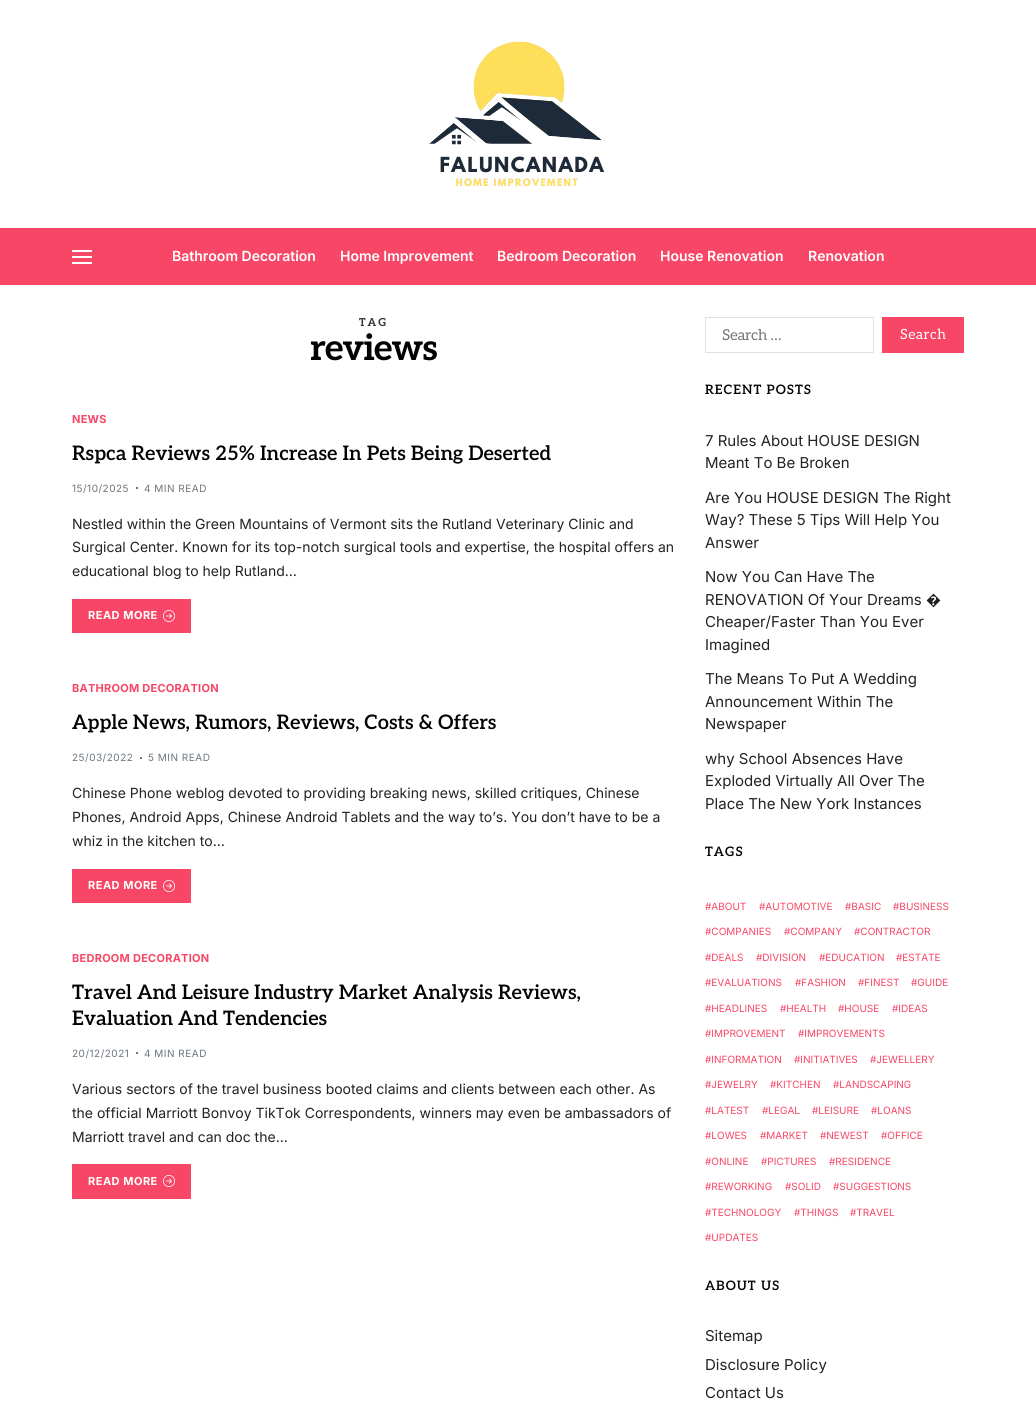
import math
import cairo

surface = cairo.ImageSurface(cairo.FORMAT_RGB24, 1036, 1410)
ctx = cairo.Context(surface)
options = cairo.FontOptions()
options.set_hint_metrics(cairo.HINT_METRICS_OFF)
options.set_hint_style(cairo.HINT_STYLE_NONE)
ctx.set_font_options(options)
ctx.set_miter_limit(4)


def set_color(code):
    ctx.set_source_rgb(*(v / 255 for v in bytes.fromhex(code[-6:])))


def draw_text(x, y, s, family, size, color, bold=False, italic=False):
    ctx.select_font_face(family, cairo.FONT_SLANT_ITALIC if italic else cairo.FONT_SLANT_NORMAL, cairo.FONT_WEIGHT_BOLD if bold else cairo.FONT_WEIGHT_NORMAL)
    ctx.set_font_size(size)
    set_color(color)
    ctx.move_to(x, y)
    ctx.show_text(s)


def draw_spaced(x, y, s, letter, word):
    ctx.move_to(x, y)
    for ch in s:
        ctx.show_text(ch)
        ctx.rel_move_to(letter + word * (ch == ' '), 0)


def fill_rect(x, y, w, h, color):
    set_color(color)
    ctx.rectangle(x, y, w, h)
    ctx.fill()


def draw_image(path, x, y, w, h):
    ctx.save()
    ctx.set_source_surface(cairo.ImageSurface.create_from_png(path), x, y)
    ctx.rectangle(x, y, w, h)
    ctx.fill()
    ctx.restore()


set_color("#ffffff")
ctx.paint()
draw_image("assets/img1.png", 429, 41, 176, 146)
fill_rect(0, 228, 1036, 57, "#f84666")
fill_rect(72, 250, 20, 2, "#ffffff")
fill_rect(72, 256, 20, 2, "#ffffff")
fill_rect(72, 262, 20, 2, "#ffffff")
draw_text(172, 261, "Bathroom Decoration", "Inter SemiBold", 14, "#ffffff")
draw_text(340, 261, "Home Improvement", "Inter SemiBold", 14, "#ffffff")
draw_text(497, 261, "Bedroom Decoration", "Inter SemiBold", 14, "#ffffff")
draw_text(660, 261, "House Renovation", "Inter SemiBold", 14, "#ffffff")
draw_text(808, 261, "Renovation", "Inter SemiBold", 14, "#ffffff")
ctx.select_font_face("Aleo", cairo.FONT_SLANT_NORMAL, cairo.FONT_WEIGHT_BOLD)
ctx.set_font_size(11)
set_color("#353535")
draw_spaced(359, 326, "TAG", 2, 0)
ctx.set_font_size(36)
set_color("#020202")
draw_spaced(310, 360, "reviews", -1, 0)
ctx.select_font_face("Inter", cairo.FONT_SLANT_NORMAL, cairo.FONT_WEIGHT_BOLD)
ctx.set_font_size(11)
set_color("#f84666")
draw_spaced(72, 423, "NEWS", 0.25, 0)
draw_text(72, 460, "Rspca Reviews 25% Increase In Pets Being Deserted", "Aleo SemiBold", 20, "#020202")
ctx.select_font_face("Inter")
ctx.set_font_size(10)
set_color("#6c757d")
draw_spaced(72, 492, "15/10/2025", 0.5, 0)
fill_rect(136, 487, 2, 2, "#6c757d")
draw_spaced(144, 492, "4 MIN READ", 0.5, 0)
draw_text(72, 529, "Nestled within the Green Mountains of Vermont sits the Rutland Veterinary Clinic and", "Inter", 14, "#232222")
draw_text(72, 552, "Surgical Center. Known for its top-notch surgical tools and expertise, the hospital offers an", "Inter", 14, "#232222")
draw_text(72, 576, "educational blog to help Rutland…", "Inter", 14, "#232222")
fill_rect(72, 599, 119, 34, "#f84666")
ctx.select_font_face("Inter", cairo.FONT_SLANT_NORMAL, cairo.FONT_WEIGHT_BOLD)
ctx.set_font_size(11)
set_color("#ffffff")
draw_spaced(88, 619, "READ MORE", 0.5, 0)
draw_image("assets/img2.png", 163, 610, 12, 12)
set_color("#f84666")
draw_spaced(72, 692, "BATHROOM DECORATION", 0.25, 0)
draw_text(72, 729, "Apple News, Rumors, Reviews, Costs & Offers", "Aleo SemiBold", 20, "#020202")
ctx.select_font_face("Inter")
ctx.set_font_size(10)
set_color("#6c757d")
draw_spaced(72, 761, "25/03/2022", 0.5, 0)
fill_rect(140, 757, 2, 2, "#6c757d")
draw_spaced(148, 761, "5 MIN READ", 0.5, 0)
draw_text(72, 798, "Chinese Phone weblog devoted to providing breaking news, skilled critiques, Chinese", "Inter", 14, "#232222")
draw_text(72, 822, "Phones, Android Apps, Chinese Android Tablets and the way to’s. You don’t have to be a", "Inter", 14, "#232222")
draw_text(72, 846, "whiz in the kitchen to…", "Inter", 14, "#232222")
fill_rect(72, 869, 119, 34, "#f84666")
ctx.select_font_face("Inter", cairo.FONT_SLANT_NORMAL, cairo.FONT_WEIGHT_BOLD)
ctx.set_font_size(11)
set_color("#ffffff")
draw_spaced(88, 889, "READ MORE", 0.5, 0)
draw_image("assets/img2.png", 163, 880, 12, 12)
set_color("#f84666")
draw_spaced(72, 962, "BEDROOM DECORATION", 0.25, 0)
draw_text(72, 999, "Travel And Leisure Industry Market Analysis Reviews,", "Aleo SemiBold", 20, "#020202")
draw_text(72, 1025, "Evaluation And Tendencies", "Aleo SemiBold", 20, "#020202")
ctx.select_font_face("Inter")
ctx.set_font_size(10)
set_color("#6c757d")
draw_spaced(72, 1057, "20/12/2021", 0.5, 0)
fill_rect(136, 1052, 2, 2, "#6c757d")
draw_spaced(144, 1057, "4 MIN READ", 0.5, 0)
draw_text(72, 1094, "Various sectors of the travel business booted claims and clients between each other. As", "Inter", 14, "#232222")
draw_text(72, 1118, "the official Marriott Bonvoy TikTok Correspondents, winners may even be ambassadors of", "Inter", 14, "#232222")
draw_text(72, 1142, "Marriott travel and can doc the…", "Inter", 14, "#232222")
fill_rect(72, 1164, 119, 35, "#f84666")
ctx.select_font_face("Inter", cairo.FONT_SLANT_NORMAL, cairo.FONT_WEIGHT_BOLD)
ctx.set_font_size(11)
set_color("#ffffff")
draw_spaced(88, 1185, "READ MORE", 0.5, 0)
draw_image("assets/img2.png", 163, 1175, 12, 12)
ctx.rectangle(705.5, 317.5, 168, 35)
set_color("#dee2e6")
ctx.set_line_width(1)
ctx.stroke()
ctx.select_font_face("Aleo")
ctx.set_font_size(15)
set_color("#757575")
draw_spaced(722, 340, "Search …", -0.25, 0)
fill_rect(882, 317, 82, 36, "#f84666")
ctx.set_font_size(14)
set_color("#ffffff")
draw_spaced(900, 339, "Search", 0.5, 0)
ctx.select_font_face("Aleo SemiBold")
ctx.set_font_size(13)
set_color("#020202")
draw_spaced(705, 394, "RECENT POSTS", 1, 0)
draw_text(705, 446, "7 Rules About HOUSE DESIGN", "Inter", 15, "#232222")
draw_text(705, 468, "Meant To Be Broken", "Inter", 15, "#232222")
draw_text(705, 503, "Are You HOUSE DESIGN The Right", "Inter", 15, "#232222")
draw_text(705, 525, "Way? These 5 Tips Will Help You", "Inter", 15, "#232222")
draw_text(705, 548, "Answer", "Inter", 15, "#232222")
draw_text(705, 582, "Now You Can Have The", "Inter", 15, "#232222")
draw_text(705, 605, "RENOVATION Of Your Dreams", "Inter", 15, "#232222")
draw_text(926, 605, "�", "Noto Sans", 15, "#232222")
draw_text(705, 627, "Cheaper/Faster Than You Ever", "Inter", 15, "#232222")
draw_text(705, 650, "Imagined", "Inter", 15, "#232222")
draw_text(705, 684, "The Means To Put A Wedding", "Inter", 15, "#232222")
draw_text(705, 707, "Announcement Within The", "Inter", 15, "#232222")
draw_text(705, 729, "Newspaper", "Inter", 15, "#232222")
draw_text(705, 764, "why School Absences Have", "Inter", 15, "#232222")
draw_text(705, 786, "Exploded Virtually All Over The", "Inter", 15, "#232222")
draw_text(705, 809, "Place The New York Instances", "Inter", 15, "#232222")
ctx.select_font_face("Aleo SemiBold")
ctx.set_font_size(13)
set_color("#020202")
draw_spaced(705, 856, "TAGS", 1, 0)
draw_text(705, 910, "#ABOUT", "Inter", 10, "#f84666")
draw_text(759, 910, "#AUTOMOTIVE", "Inter", 10, "#f84666")
draw_text(845, 910, "#BASIC", "Inter", 10, "#f84666")
draw_text(893, 910, "#BUSINESS", "Inter", 10, "#f84666")
draw_text(705, 935, "#COMPANIES", "Inter", 10, "#f84666")
draw_text(784, 935, "#COMPANY", "Inter", 10, "#f84666")
draw_text(854, 935, "#CONTRACTOR", "Inter", 10, "#f84666")
draw_text(705, 961, "#DEALS", "Inter", 10, "#f84666")
draw_text(756, 961, "#DIVISION", "Inter", 10, "#f84666")
draw_text(819, 961, "#EDUCATION", "Inter", 10, "#f84666")
draw_text(896, 961, "#ESTATE", "Inter", 10, "#f84666")
draw_text(705, 986, "#EVALUATIONS", "Inter", 10, "#f84666")
draw_text(795, 986, "#FASHION", "Inter", 10, "#f84666")
draw_text(858, 986, "#FINEST", "Inter", 10, "#f84666")
draw_text(911, 986, "#GUIDE", "Inter", 10, "#f84666")
draw_text(705, 1012, "#HEADLINES", "Inter", 10, "#f84666")
draw_text(780, 1012, "#HEALTH", "Inter", 10, "#f84666")
draw_text(838, 1012, "#HOUSE", "Inter", 10, "#f84666")
draw_text(892, 1012, "#IDEAS", "Inter", 10, "#f84666")
draw_text(705, 1037, "#IMPROVEMENT", "Inter", 10, "#f84666")
draw_text(798, 1037, "#IMPROVEMENTS", "Inter", 10, "#f84666")
draw_text(705, 1063, "#INFORMATION", "Inter", 10, "#f84666")
draw_text(794, 1063, "#INITIATIVES", "Inter", 10, "#f84666")
draw_text(870, 1063, "#JEWELLERY", "Inter", 10, "#f84666")
draw_text(705, 1088, "#JEWELRY", "Inter", 10, "#f84666")
draw_text(770, 1088, "#KITCHEN", "Inter", 10, "#f84666")
draw_text(833, 1088, "#LANDSCAPING", "Inter", 10, "#f84666")
draw_text(705, 1114, "#LATEST", "Inter", 10, "#f84666")
draw_text(762, 1114, "#LEGAL", "Inter", 10, "#f84666")
draw_text(812, 1114, "#LEISURE", "Inter", 10, "#f84666")
draw_text(871, 1114, "#LOANS", "Inter", 10, "#f84666")
draw_text(705, 1139, "#LOWES", "Inter", 10, "#f84666")
draw_text(760, 1139, "#MARKET", "Inter", 10, "#f84666")
draw_text(820, 1139, "#NEWEST", "Inter", 10, "#f84666")
draw_text(881, 1139, "#OFFICE", "Inter", 10, "#f84666")
draw_text(705, 1165, "#ONLINE", "Inter", 10, "#f84666")
draw_text(761, 1165, "#PICTURES", "Inter", 10, "#f84666")
draw_text(829, 1165, "#RESIDENCE", "Inter", 10, "#f84666")
draw_text(705, 1190, "#REWORKING", "Inter", 10, "#f84666")
draw_text(785, 1190, "#SOLID", "Inter", 10, "#f84666")
draw_text(833, 1190, "#SUGGESTIONS", "Inter", 10, "#f84666")
draw_text(705, 1216, "#TECHNOLOGY", "Inter", 10, "#f84666")
draw_text(794, 1216, "#THINGS", "Inter", 10, "#f84666")
draw_text(850, 1216, "#TRAVEL", "Inter", 10, "#f84666")
draw_text(705, 1241, "#UPDATES", "Inter", 10, "#f84666")
ctx.select_font_face("Aleo SemiBold")
ctx.set_font_size(13)
set_color("#020202")
draw_spaced(705, 1290, "ABOUT US", 1, 0)
draw_text(705, 1341, "Sitemap", "Inter", 15, "#232222")
draw_text(705, 1370, "Disclosure Policy", "Inter", 15, "#232222")
draw_text(705, 1398, "Contact Us", "Inter", 15, "#232222")
surface.write_to_png("output.png")
